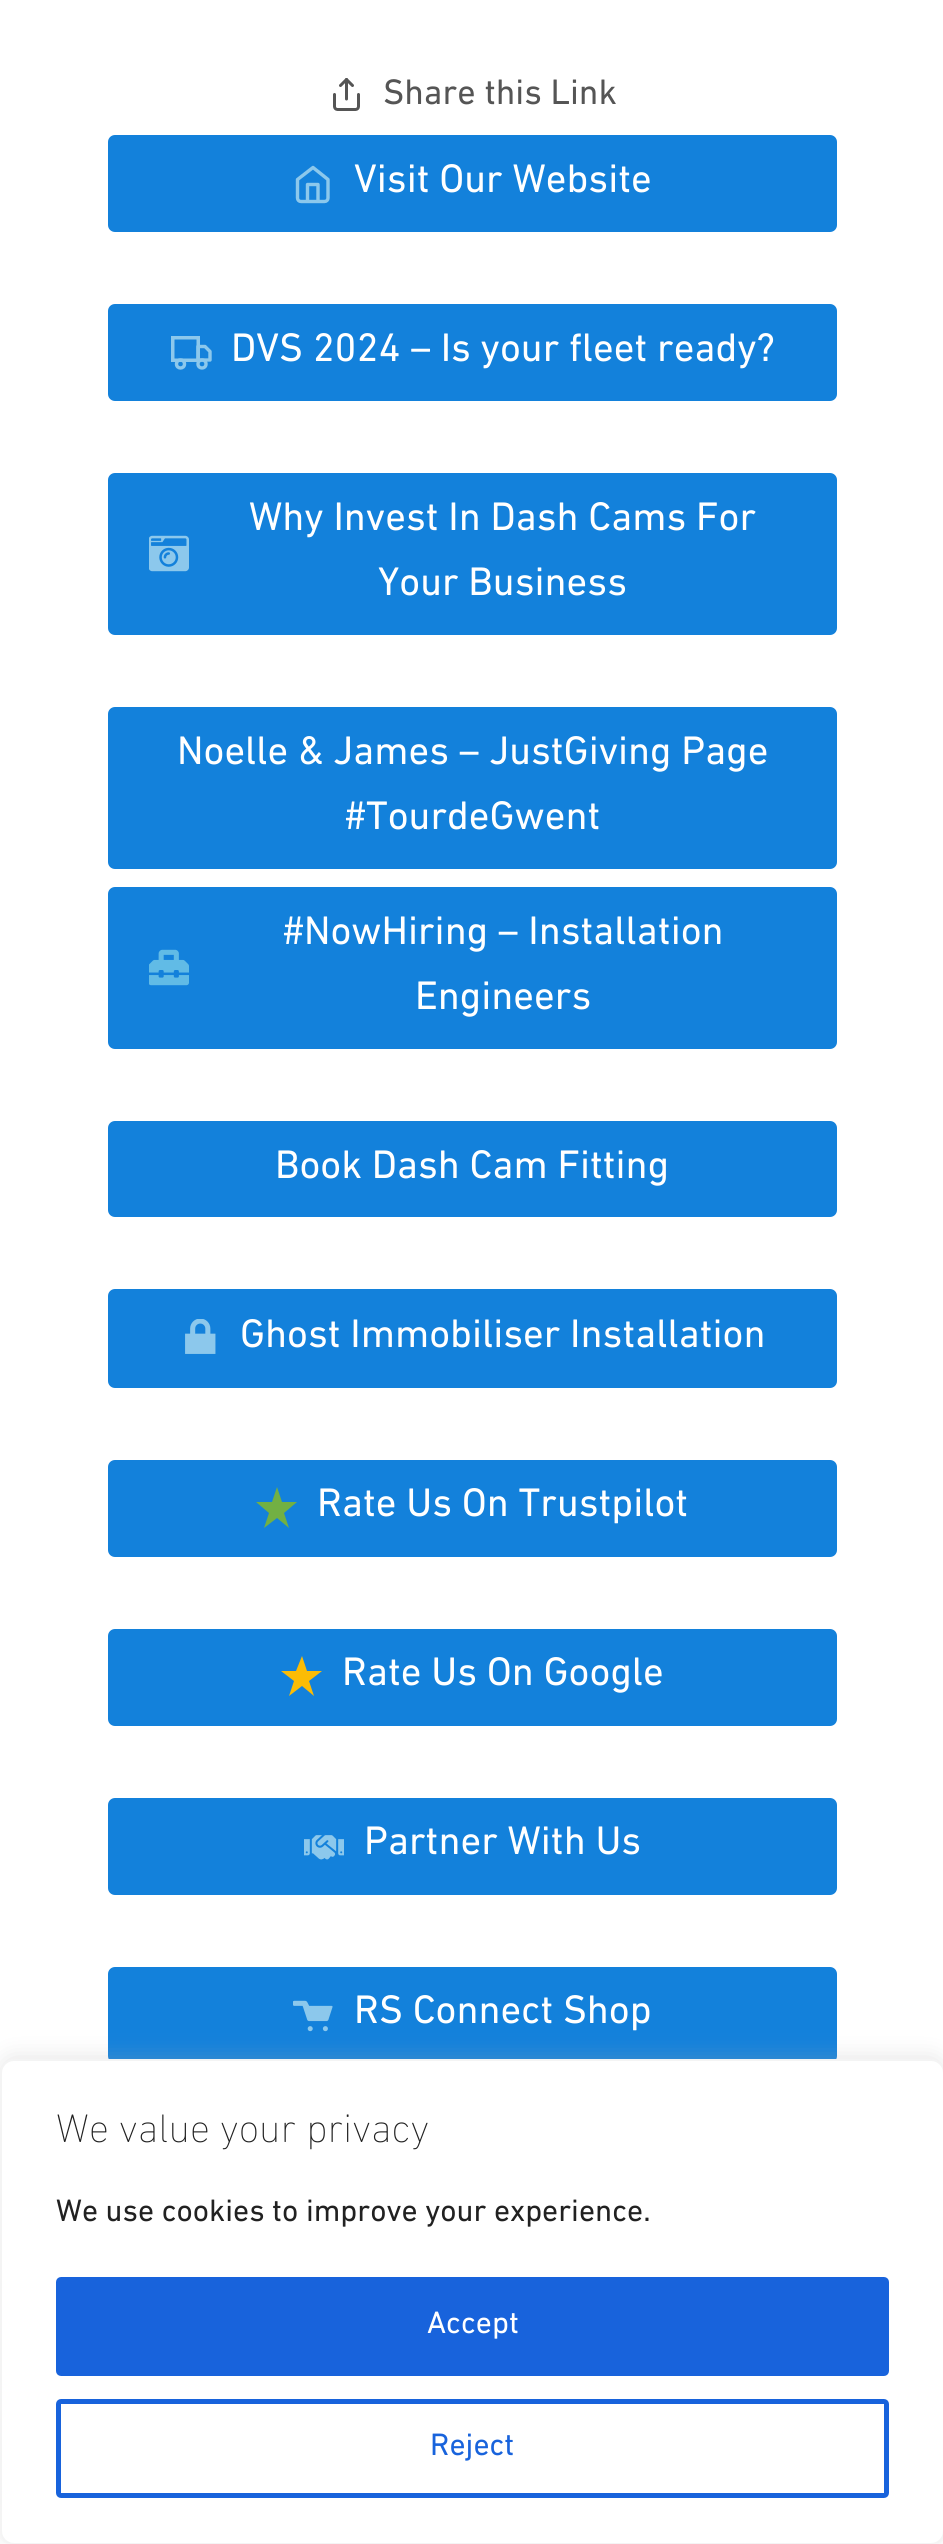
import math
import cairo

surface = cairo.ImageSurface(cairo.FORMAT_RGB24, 943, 2544)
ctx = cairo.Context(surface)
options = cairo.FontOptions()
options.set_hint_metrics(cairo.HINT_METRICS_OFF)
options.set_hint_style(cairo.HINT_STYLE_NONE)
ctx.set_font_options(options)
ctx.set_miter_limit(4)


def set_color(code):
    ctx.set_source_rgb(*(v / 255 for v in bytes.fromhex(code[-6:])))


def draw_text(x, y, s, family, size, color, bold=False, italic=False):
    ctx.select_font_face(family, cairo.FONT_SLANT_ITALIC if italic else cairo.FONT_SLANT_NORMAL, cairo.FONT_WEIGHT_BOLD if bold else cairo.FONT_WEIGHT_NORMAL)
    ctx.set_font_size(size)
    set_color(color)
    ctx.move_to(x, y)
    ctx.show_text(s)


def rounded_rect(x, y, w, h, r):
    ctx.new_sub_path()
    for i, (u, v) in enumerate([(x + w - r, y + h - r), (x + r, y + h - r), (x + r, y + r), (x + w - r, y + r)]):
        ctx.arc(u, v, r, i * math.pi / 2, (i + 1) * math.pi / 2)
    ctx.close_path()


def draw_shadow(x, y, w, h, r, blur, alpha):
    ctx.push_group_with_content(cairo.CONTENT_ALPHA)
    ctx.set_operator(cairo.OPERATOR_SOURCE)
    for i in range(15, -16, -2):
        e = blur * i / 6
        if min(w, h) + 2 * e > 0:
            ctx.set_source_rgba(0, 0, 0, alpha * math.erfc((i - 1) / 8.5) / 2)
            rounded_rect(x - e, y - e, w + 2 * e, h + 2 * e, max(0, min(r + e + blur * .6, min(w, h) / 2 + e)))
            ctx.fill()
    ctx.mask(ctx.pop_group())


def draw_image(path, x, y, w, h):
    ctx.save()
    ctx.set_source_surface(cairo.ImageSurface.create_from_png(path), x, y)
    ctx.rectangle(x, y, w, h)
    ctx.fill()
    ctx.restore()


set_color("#ffffff")
ctx.paint()
draw_image("assets/img1.png", 333, 78, 27, 33)
draw_text(383, 104, "Share this Link", "DIN Next", 36, "#555555")
set_color("#1381db")
rounded_rect(108, 135, 729, 97, 7)
ctx.fill()
ctx.new_path()
ctx.move_to(297.5, 179.5)
ctx.line_to(313, 167.5)
ctx.line_to(328, 179.5)
ctx.line_to(328, 198)
ctx.curve_to(328, 200, 326.5, 201.5, 324.5, 201.5)
ctx.line_to(301, 201.5)
ctx.curve_to(299, 201.5, 297.5, 200, 297.5, 198)
ctx.close_path()
ctx.move_to(307.5, 201.5)
ctx.line_to(307.5, 184.5)
ctx.line_to(318, 184.5)
ctx.line_to(318, 201.5)
set_color("#8cc8ec")
ctx.set_line_width(3.4)
ctx.set_line_cap(cairo.LINE_CAP_ROUND)
ctx.set_line_join(cairo.LINE_JOIN_ROUND)
ctx.stroke()
draw_text(354, 192, "Visit Our Website", "DIN Next", 40.5, "#ffffff")
set_color("#1381db")
rounded_rect(108, 304, 729, 97, 7)
ctx.fill()
ctx.rectangle(172.75, 337.75, 25.5, 22.5)
set_color("#8cc8ec")
ctx.set_line_width(3.5)
ctx.set_line_cap(cairo.LINE_CAP_BUTT)
ctx.set_line_join(cairo.LINE_JOIN_MITER)
ctx.stroke()
ctx.new_path()
ctx.move_to(198, 346.5)
ctx.line_to(205, 346.5)
ctx.line_to(210, 351.5)
ctx.line_to(210, 360)
ctx.line_to(198, 360)
ctx.close_path()
ctx.set_line_width(3.4)
ctx.set_line_cap(cairo.LINE_CAP_ROUND)
ctx.set_line_join(cairo.LINE_JOIN_ROUND)
ctx.stroke()
ctx.arc(180.5, 364, 4, 0, 2 * math.pi)
ctx.set_line_cap(cairo.LINE_CAP_BUTT)
ctx.set_line_join(cairo.LINE_JOIN_MITER)
ctx.stroke()
ctx.arc(202, 364, 4, 0, 2 * math.pi)
ctx.stroke()
draw_text(231, 361, "DVS 2024 – Is your fleet ready?", "DIN Next", 40.5, "#ffffff")
set_color("#1381db")
rounded_rect(108, 473, 729, 162, 7)
ctx.fill()
draw_image("assets/img2.png", 149, 535, 40, 37)
draw_text(249, 530, "Why Invest In Dash Cams For", "DIN Next", 40.5, "#ffffff")
draw_text(378, 595, "Your Business", "DIN Next", 40.5, "#ffffff")
set_color("#1381db")
rounded_rect(108, 707, 729, 162, 7)
ctx.fill()
draw_text(177, 764, "Noelle & James – JustGiving Page", "DIN Next", 40.5, "#ffffff")
draw_text(345, 829, "#TourdeGwent", "DIN Next", 40.5, "#ffffff")
set_color("#1381db")
rounded_rect(108, 887, 729, 162, 7)
ctx.fill()
draw_image("assets/img3.png", 149, 949, 40, 37)
draw_text(283, 944, "#NowHiring – Installation", "DIN Next", 40.5, "#ffffff")
draw_text(415, 1009, "Engineers", "DIN Next", 40.5, "#ffffff")
set_color("#1381db")
rounded_rect(108, 1121, 729, 96, 7)
ctx.fill()
draw_text(275, 1178, "Book Dash Cam Fitting", "DIN Next", 40.5, "#ffffff")
set_color("#1381db")
rounded_rect(108, 1289, 729, 99, 7)
ctx.fill()
draw_image("assets/img4.png", 185, 1319, 31, 35)
draw_text(240, 1347, "Ghost Immobiliser Installation", "DIN Next", 40.5, "#ffffff")
set_color("#1381db")
rounded_rect(108, 1460, 729, 97, 7)
ctx.fill()
set_color("#72b043")
ctx.new_path()
ctx.move_to(277, 1487)
ctx.line_to(272, 1502)
ctx.line_to(256, 1502)
ctx.line_to(269, 1513)
ctx.line_to(264, 1528)
ctx.line_to(277, 1518)
ctx.line_to(289, 1528)
ctx.line_to(284, 1513)
ctx.line_to(297, 1502)
ctx.line_to(282, 1502)
ctx.close_path()
ctx.fill()
draw_text(317, 1516, "Rate Us On Trustpilot", "DIN Next", 40.5, "#ffffff")
set_color("#1381db")
rounded_rect(108, 1629, 729, 97, 7)
ctx.fill()
set_color("#fbbc05")
ctx.new_path()
ctx.move_to(302, 1656)
ctx.line_to(296, 1671)
ctx.line_to(281, 1671)
ctx.line_to(294, 1681)
ctx.line_to(289, 1696)
ctx.line_to(302, 1686)
ctx.line_to(314, 1696)
ctx.line_to(309, 1681)
ctx.line_to(322, 1671)
ctx.line_to(307, 1671)
ctx.close_path()
ctx.fill()
draw_text(342, 1685, "Rate Us On Google", "DIN Next", 40.5, "#ffffff")
set_color("#1381db")
rounded_rect(108, 1798, 729, 97, 7)
ctx.fill()
draw_image("assets/img5.png", 304, 1835, 40, 25)
draw_text(364, 1854, "Partner With Us", "DIN Next", 40.5, "#ffffff")
set_color("#1381db")
rounded_rect(108, 1967, 729, 96, 7)
ctx.fill()
draw_image("assets/img6.png", 293, 2000, 40, 32)
draw_text(354, 2023, "RS Connect Shop", "DIN Next", 40.5, "#ffffff")
set_color("#acabab")
draw_shadow(0, 2057, 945, 486, 14, 11, 0.3)
set_color("#ffffff")
rounded_rect(1, 2060, 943, 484, 13)
ctx.fill_preserve()
set_color("#f4f4f4")
ctx.set_line_width(2)
ctx.stroke()
draw_text(56, 2142, "We value your privacy", "DIN Next ExtraLight", 40.5, "#212121")
draw_text(56, 2221, "We use cookies to improve your experience.", "DIN Next", 31.5, "#212121")
set_color("#1863dc")
rounded_rect(58.5, 2279.5, 828, 94, 2.5)
ctx.fill_preserve()
ctx.set_line_width(5)
ctx.stroke()
draw_text(427, 2333, "Accept", "DIN Next", 31.5, "#ffffff")
rounded_rect(58.5, 2401.5, 828, 94, 2.5)
set_color("#1863dc")
ctx.stroke()
draw_text(430, 2455, "Reject", "DIN Next", 31.5, "#1863dc")
surface.write_to_png("output.png")
